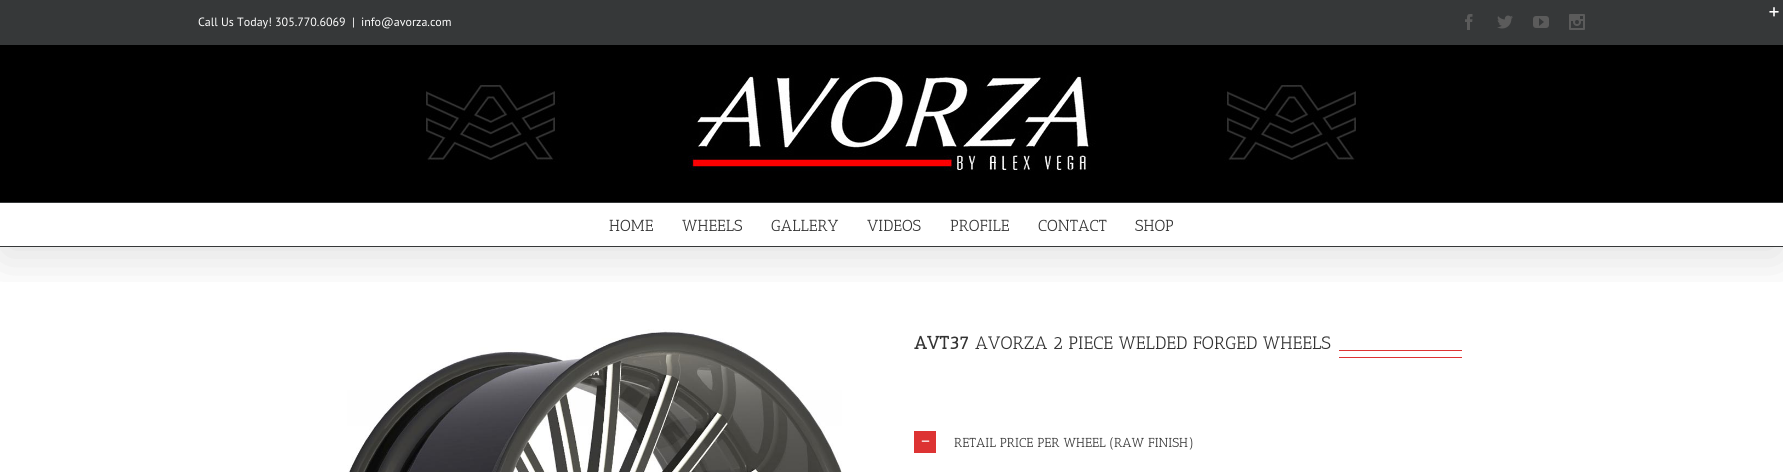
import math
import cairo

surface = cairo.ImageSurface(cairo.FORMAT_RGB24, 1783, 472)
ctx = cairo.Context(surface)
options = cairo.FontOptions()
options.set_hint_metrics(cairo.HINT_METRICS_OFF)
options.set_hint_style(cairo.HINT_STYLE_NONE)
ctx.set_font_options(options)
ctx.set_miter_limit(4)


def set_color(code):
    ctx.set_source_rgb(*(v / 255 for v in bytes.fromhex(code[-6:])))


def draw_text(x, y, s, family, size, color, bold=False, italic=False):
    ctx.select_font_face(family, cairo.FONT_SLANT_ITALIC if italic else cairo.FONT_SLANT_NORMAL, cairo.FONT_WEIGHT_BOLD if bold else cairo.FONT_WEIGHT_NORMAL)
    ctx.set_font_size(size)
    set_color(color)
    ctx.move_to(x, y)
    ctx.show_text(s)


def fill_rect(x, y, w, h, color):
    set_color(color)
    ctx.rectangle(x, y, w, h)
    ctx.fill()


def rounded_rect(x, y, w, h, r):
    ctx.new_sub_path()
    for i, (u, v) in enumerate([(x + w - r, y + h - r), (x + r, y + h - r), (x + r, y + r), (x + w - r, y + r)]):
        ctx.arc(u, v, r, i * math.pi / 2, (i + 1) * math.pi / 2)
    ctx.close_path()


def draw_shadow(x, y, w, h, r, blur, alpha):
    ctx.push_group_with_content(cairo.CONTENT_ALPHA)
    ctx.set_operator(cairo.OPERATOR_SOURCE)
    for i in range(15, -16, -2):
        e = blur * i / 6
        if min(w, h) + 2 * e > 0:
            ctx.set_source_rgba(0, 0, 0, alpha * math.erfc((i - 1) / 8.5) / 2)
            rounded_rect(x - e, y - e, w + 2 * e, h + 2 * e, max(0, min(r + e + blur * .6, min(w, h) / 2 + e)))
            ctx.fill()
    ctx.mask(ctx.pop_group())


def draw_image(path, x, y, w, h):
    ctx.save()
    ctx.set_source_surface(cairo.ImageSurface.create_from_png(path), x, y)
    ctx.rectangle(x, y, w, h)
    ctx.fill()
    ctx.restore()


set_color("#ffffff")
ctx.paint()
draw_image("assets/img7.png", 347, 329, 495, 143)
ctx.save()
ctx.rectangle(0, 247, 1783, 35)
ctx.clip()
set_color("#000000")
draw_shadow(2, 12, 1779, 243, 0, 25, 0.14)
ctx.restore()
fill_rect(0, 0, 1783, 45, "#363839")
draw_image("assets/img1.png", 1769, 7, 10, 10)
draw_text(198, 26, "Call Us Today! 305.770.6069", "PT Sans", 12, "#ffffff")
draw_text(352, 26, "|", "PT Sans", 12, "#ffffff")
draw_text(361, 26, "info@avorza.com", "PT Sans", 12, "#ffffff")
draw_image("assets/img2.png", 1465, 14, 8, 16)
draw_image("assets/img3.png", 1497, 15, 16, 14)
draw_image("assets/img4.png", 1533, 16, 16, 12)
draw_image("assets/img5.png", 1569, 14, 16, 16)
fill_rect(0, 45, 1783, 157, "#000000")
fill_rect(0, 202, 1783, 1, "#363839")
draw_image("assets/img6.png", 426, 75, 930, 96)
fill_rect(0, 246, 1783, 1, "#363839")
draw_text(609, 231, "HOME", "Antic Slab", 16, "#333333")
draw_text(682, 231, "WHEELS", "Antic Slab", 16, "#333333")
draw_text(771, 231, "GALLERY", "Antic Slab", 16, "#333333")
draw_text(867, 231, "VIDEOS", "Antic Slab", 16, "#333333")
draw_text(950, 231, "PROFILE", "Antic Slab", 16, "#333333")
draw_text(1038, 231, "CONTACT", "Antic Slab", 16, "#333333")
draw_text(1135, 231, "SHOP", "Antic Slab", 16, "#333333")
draw_text(914, 349, "AVT37", "Antic Slab", 18, "#333333", bold=True)
draw_text(975, 349, "AVORZA 2 PIECE WELDED FORGED WHEELS", "Antic Slab", 18, "#333333")
fill_rect(1339, 350, 123, 1, "#dd3333")
fill_rect(1339, 357, 123, 1, "#dd3333")
fill_rect(914, 431, 22, 22, "#dd3333")
draw_image("assets/img8.png", 921, 440, 9, 2)
draw_text(954, 447, "RETAIL PRICE PER WHEEL (RAW FINISH)", "Antic Slab", 13, "#333333")
surface.write_to_png("output.png")
